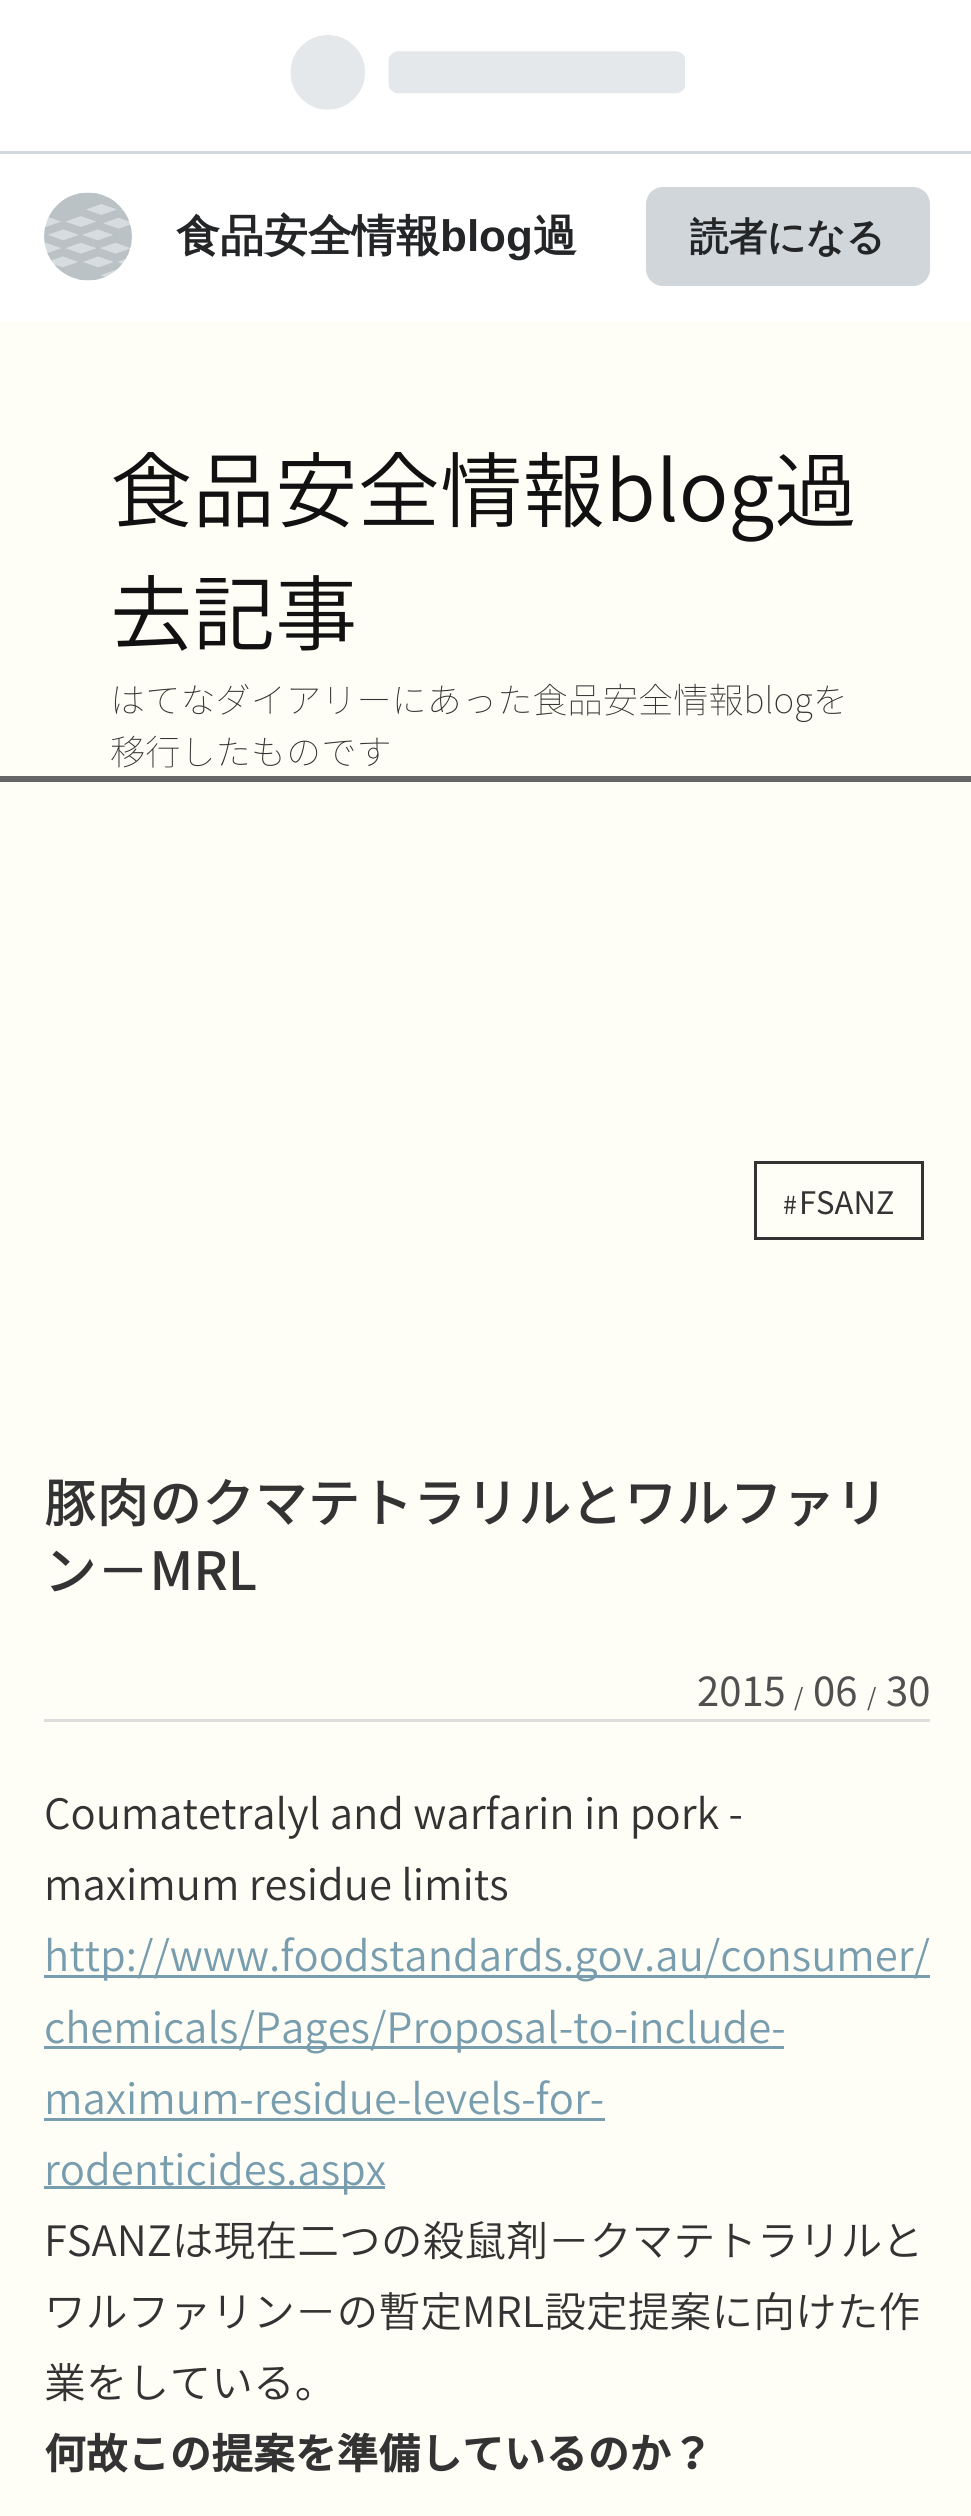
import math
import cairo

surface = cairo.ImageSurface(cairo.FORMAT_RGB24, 971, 2516)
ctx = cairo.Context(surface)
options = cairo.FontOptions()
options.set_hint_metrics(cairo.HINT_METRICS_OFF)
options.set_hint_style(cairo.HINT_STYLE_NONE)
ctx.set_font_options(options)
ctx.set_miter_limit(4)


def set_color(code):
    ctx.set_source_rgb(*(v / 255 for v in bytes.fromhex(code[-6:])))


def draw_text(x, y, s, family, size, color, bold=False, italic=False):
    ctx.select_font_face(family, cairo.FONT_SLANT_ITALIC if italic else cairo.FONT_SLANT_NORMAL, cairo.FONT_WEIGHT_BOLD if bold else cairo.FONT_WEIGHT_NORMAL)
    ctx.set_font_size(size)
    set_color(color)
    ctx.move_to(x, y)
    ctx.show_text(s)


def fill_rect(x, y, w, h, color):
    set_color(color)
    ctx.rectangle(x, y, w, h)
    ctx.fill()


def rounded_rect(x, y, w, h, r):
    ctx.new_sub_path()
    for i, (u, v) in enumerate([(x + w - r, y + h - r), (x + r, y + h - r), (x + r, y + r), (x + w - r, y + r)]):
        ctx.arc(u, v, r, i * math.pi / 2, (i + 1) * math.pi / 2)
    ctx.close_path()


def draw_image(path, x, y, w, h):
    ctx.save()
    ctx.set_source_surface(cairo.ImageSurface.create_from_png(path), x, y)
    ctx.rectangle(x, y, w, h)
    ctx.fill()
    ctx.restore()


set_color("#fffef6")
ctx.paint()
fill_rect(0, 0, 971, 151, "#ffffff")
fill_rect(0, 151, 971, 3, "#d2d8dd")
draw_image("assets/img1.png", 290, 35, 395, 75)
fill_rect(0, 154, 971, 168, "#ffffff")
draw_image("assets/img2.png", 44, 192, 88, 89)
draw_text(176, 251, "食品安全情報", "WenQuanYi Zen Hei", 44, "#242527", bold=True)
draw_text(440, 251, "blog", "Liberation Sans", 44, "#242527", bold=True)
draw_text(533, 251, "過", "WenQuanYi Zen Hei", 44, "#242527", bold=True)
set_color("#d1d6da")
rounded_rect(646, 187, 284, 99, 17)
ctx.fill()
draw_text(690, 250, "読者になる", "WenQuanYi Zen Hei", 38.5, "#242527", bold=True)
fill_rect(0, 776, 971, 6, "#666666")
draw_text(110, 521, "食品安全情報blog過", "Noto Sans JP Light", 82.5, "#111111")
draw_text(110, 644, "去記事", "Noto Sans JP Light", 82.5, "#111111")
draw_text(110, 713, "はてなダイアリーにあった食品安全情報blogを", "Noto Sans JP Thin", 35.2, "#333333")
draw_text(110, 765, "移行したものです", "Noto Sans JP Thin", 35.2, "#333333")
fill_rect(44, 1719, 886, 3, "#dddddd")
ctx.rectangle(755.5, 1162.5, 167, 76)
set_color("#333333")
ctx.set_line_width(3)
ctx.stroke()
draw_text(783, 1214, "#", "Noto Sans JP", 25, "#333333")
draw_text(799, 1214, "FSANZ", "Noto Sans JP", 31, "#333333")
draw_text(44, 1522, "豚肉のクマテトラリルとワルファリ", "Noto Sans JP Medium", 52.75, "#333333")
draw_text(44, 1590, "ン−MRL", "Noto Sans JP Medium", 52.75, "#333333")
draw_text(697, 1706, "2015", "Noto Sans JP", 40, "#505050")
draw_text(794, 1706, "/", "Noto Sans JP", 24, "#505050")
draw_text(813, 1706, "06", "Noto Sans JP", 40, "#505050")
draw_text(867, 1706, "/", "Noto Sans JP", 24, "#505050")
draw_text(886, 1706, "30", "Noto Sans JP", 40, "#505050")
draw_text(44, 1829, "Coumatetralyl and warfarin in pork -", "Noto Sans JP Light", 41.8, "#333333")
draw_text(44, 1900, "maximum residue limits", "Noto Sans JP Light", 41.8, "#333333")
fill_rect(44, 1975, 886, 3, "#789dae")
draw_text(44, 1971, "http://www.foodstandards.gov.au/consumer/", "Noto Sans JP Light", 41.8, "#789dae")
fill_rect(44, 2046, 740, 3, "#789dae")
draw_text(44, 2043, "chemicals/Pages/Proposal-to-include-", "Noto Sans JP Light", 41.8, "#789dae")
draw_text(44, 2114, "maximum-residue-levels-for-", "Noto Sans JP Light", 41.8, "#789dae")
fill_rect(44, 2118, 561, 3, "#789dae")
fill_rect(44, 2186, 341, 3, "#789dae")
draw_text(44, 2185, "rodenticides.aspx", "Noto Sans JP Light", 41.8, "#789dae")
draw_text(44, 2256, "FSANZは現在二つの殺鼠剤−クマテトラリルと", "Noto Sans JP Light", 41.8, "#333333")
draw_text(44, 2327, "ワルファリン−の暫定MRL設定提案に向けた作", "Noto Sans JP Light", 41.8, "#333333")
draw_text(44, 2398, "業をしている。", "Noto Sans JP Light", 41.8, "#333333")
draw_text(44, 2469, "何故この提案を準備しているのか？", "Noto Sans JP", 41.8, "#333333", bold=True)
surface.write_to_png("output.png")
